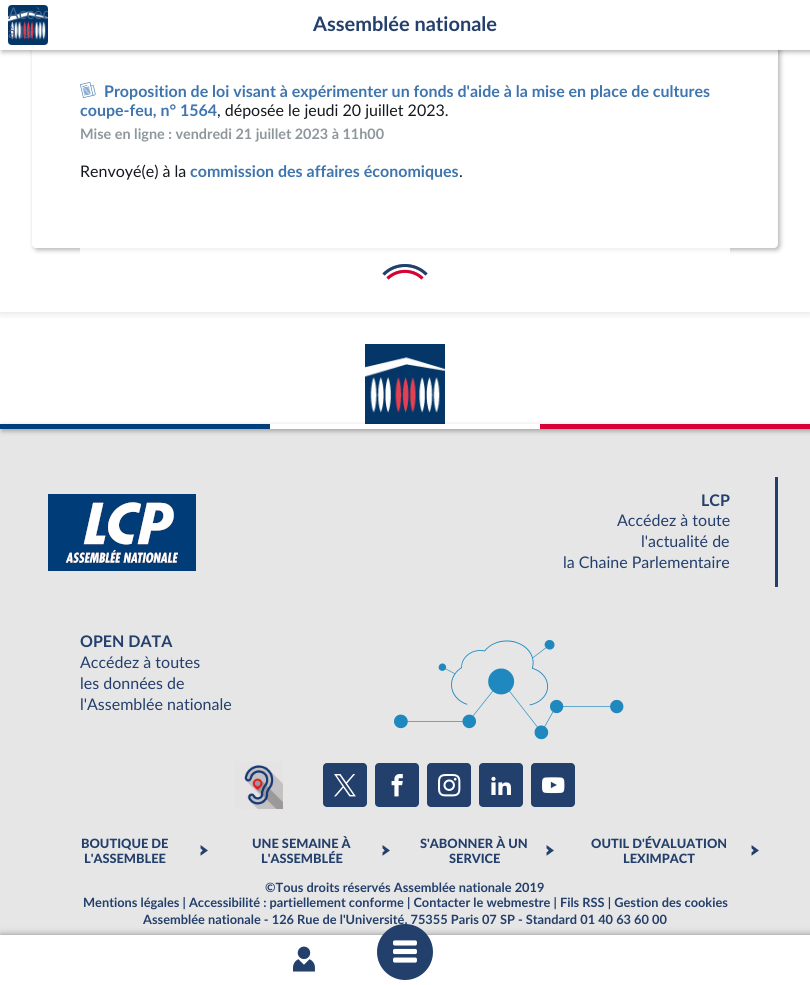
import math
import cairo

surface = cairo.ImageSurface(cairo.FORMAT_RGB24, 810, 985)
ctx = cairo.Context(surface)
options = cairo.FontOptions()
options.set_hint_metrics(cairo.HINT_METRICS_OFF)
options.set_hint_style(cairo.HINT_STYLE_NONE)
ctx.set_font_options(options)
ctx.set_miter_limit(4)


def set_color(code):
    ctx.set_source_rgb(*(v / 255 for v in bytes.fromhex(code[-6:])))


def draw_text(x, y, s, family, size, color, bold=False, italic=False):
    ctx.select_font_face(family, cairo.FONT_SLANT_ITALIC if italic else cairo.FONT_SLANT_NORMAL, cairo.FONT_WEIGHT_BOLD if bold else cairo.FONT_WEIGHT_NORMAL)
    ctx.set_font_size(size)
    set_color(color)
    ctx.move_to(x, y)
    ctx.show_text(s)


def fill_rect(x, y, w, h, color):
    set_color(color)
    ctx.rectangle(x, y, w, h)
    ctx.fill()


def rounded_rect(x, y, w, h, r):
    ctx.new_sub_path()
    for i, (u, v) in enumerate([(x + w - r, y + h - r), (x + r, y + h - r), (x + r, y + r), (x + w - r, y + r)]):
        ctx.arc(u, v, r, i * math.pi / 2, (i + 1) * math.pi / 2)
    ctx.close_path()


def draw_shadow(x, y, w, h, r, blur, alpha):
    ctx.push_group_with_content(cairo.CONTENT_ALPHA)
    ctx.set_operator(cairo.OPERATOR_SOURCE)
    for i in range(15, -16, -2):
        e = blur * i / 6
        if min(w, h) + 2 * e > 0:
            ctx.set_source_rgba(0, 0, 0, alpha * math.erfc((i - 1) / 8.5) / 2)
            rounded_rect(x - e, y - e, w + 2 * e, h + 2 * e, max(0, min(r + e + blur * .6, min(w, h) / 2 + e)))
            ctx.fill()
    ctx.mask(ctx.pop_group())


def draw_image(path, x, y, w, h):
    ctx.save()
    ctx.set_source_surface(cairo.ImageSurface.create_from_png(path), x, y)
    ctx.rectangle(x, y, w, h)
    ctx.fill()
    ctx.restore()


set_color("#ffffff")
ctx.paint()
set_color("#000000")
draw_shadow(2, 2, 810, 50, 0, 2.5, 0.3)
ctx.save()
ctx.rectangle(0, 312, 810, 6)
ctx.clip()
draw_shadow(0, -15, 810, 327, 0, 5, 0.15)
ctx.restore()
ctx.save()
ctx.set_fill_rule(cairo.FILL_RULE_EVEN_ODD)
ctx.new_path()
ctx.move_to(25, 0)
ctx.line_to(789, 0)
ctx.line_to(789, 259)
ctx.line_to(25, 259)
ctx.close_path()
ctx.move_to(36, -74)
ctx.line_to(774, -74)
ctx.curve_to(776, -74, 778, -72, 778, -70)
ctx.line_to(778, 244)
ctx.curve_to(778, 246, 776, 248, 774, 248)
ctx.line_to(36, 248)
ctx.curve_to(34, 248, 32, 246, 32, 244)
ctx.line_to(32, -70)
ctx.curve_to(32, -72, 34, -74, 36, -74)
ctx.close_path()
ctx.clip()
draw_shadow(34, -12, 746, 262, 4, 2.5, 0.3)
ctx.restore()
fill_rect(0, 0, 810, 50, "#ffffff")
draw_image("assets/img1.png", 8, 5, 40, 40)
ctx.save()
rounded_rect(8, 5, 40, 40, 4)
ctx.clip()
draw_text(8, 19, "Accèd", "Lato", 16, "#40668c")
ctx.restore()
draw_text(8, 38, "à la", "Lato", 16, "#5b5a7d")
draw_text(313, 31, "Assemblée nationale", "Lato", 20, "#233f6b", bold=True)
draw_image("assets/img2.png", 80, 82, 16, 16)
draw_text(104, 97, "Proposition de loi visant à expérimenter un fonds d'aide à la mise en place de cultures", "Lato", 16, "#3f75af", bold=True)
draw_text(80, 116, "coupe-feu, n° 1564", "Lato", 16, "#3f75af", bold=True)
draw_text(217, 116, ", déposée le jeudi 20 juillet 2023.", "Lato", 16, "#15181e")
draw_text(80, 139, "Mise en ligne : vendredi 21 juillet 2023 à 11h00", "Lato", 14.4, "#8d979c", bold=True)
draw_text(80, 177, "Renvoyé(e) à la", "Lato", 16, "#15181e")
draw_text(190, 177, "commission des affaires économiques", "Lato", 16, "#3f75af", bold=True)
draw_text(459, 177, ".", "Lato", 16, "#15181e")
ctx.set_source_rgba(1, 1, 1, 0.5)
ctx.rectangle(80, 248, 650, 6)
ctx.fill()
ctx.new_path()
ctx.move_to(383.5, 274.5)
ctx.curve_to(395, 262.5, 415, 262.5, 426.5, 274.5)
set_color("#233f6b")
ctx.set_line_width(3)
ctx.stroke()
ctx.new_path()
ctx.move_to(387.5, 278.5)
ctx.curve_to(397, 269, 413, 269, 422.5, 278.5)
set_color("#d60235")
ctx.stroke()
ctx.set_source_rgba(1, 1, 1, 0.5)
ctx.rectangle(80, 248, 650, 32)
ctx.fill()
ctx.new_path()
ctx.move_to(383.5, 274.5)
ctx.curve_to(395, 262.5, 415, 262.5, 426.5, 274.5)
set_color("#233f6b")
ctx.stroke()
ctx.new_path()
ctx.move_to(387.5, 278.5)
ctx.curve_to(397, 269, 413, 269, 422.5, 278.5)
set_color("#d60235")
ctx.stroke()
draw_image("assets/img3.png", 365, 344, 80, 80)
fill_rect(0, 429, 810, 506, "#e6e6e6")
ctx.save()
ctx.set_fill_rule(cairo.FILL_RULE_EVEN_ODD)
ctx.new_path()
ctx.move_to(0, 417)
ctx.line_to(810, 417)
ctx.line_to(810, 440)
ctx.line_to(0, 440)
ctx.close_path()
ctx.move_to(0, 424)
ctx.line_to(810, 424)
ctx.line_to(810, 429)
ctx.line_to(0, 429)
ctx.close_path()
ctx.clip()
set_color("#000000")
draw_shadow(2, 426, 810, 5, 0, 2.5, 0.3)
ctx.restore()
fill_rect(0, 424, 270, 5, "#013f7c")
fill_rect(540, 424, 270, 5, "#d60235")
draw_image("assets/img4.png", 48, 494, 148, 77)
draw_text(701, 506, "LCP", "Lato", 16, "#233f6b", bold=True)
draw_text(617, 526, "Accédez à toute", "Lato", 16, "#233f6b")
draw_text(641, 547, "l'actualité de", "Lato", 16, "#233f6b")
draw_text(563, 568, "la Chaine Parlementaire", "Lato", 16, "#233f6b")
fill_rect(775, 477, 3, 110, "#233f6b")
draw_text(80, 647, "OPEN DATA", "Lato", 16, "#233f6b", bold=True)
draw_text(80, 668, "Accédez à toutes", "Lato", 16, "#233f6b")
draw_text(80, 689, "les données de", "Lato", 16, "#233f6b")
draw_text(80, 710, "l'Assemblée nationale", "Lato", 16, "#233f6b")
draw_image("assets/img5.png", 394, 640, 230, 100)
draw_image("assets/img6.png", 235, 761, 48, 48)
rounded_rect(323, 763, 44, 44, 4)
ctx.fill()
draw_image("assets/img7.png", 334, 774, 22, 23)
rounded_rect(375, 763, 44, 44, 4)
ctx.fill()
draw_image("assets/img8.png", 391, 774, 12, 23)
rounded_rect(427, 763, 44, 44, 4)
ctx.fill()
draw_image("assets/img9.png", 438, 774, 23, 23)
rounded_rect(479, 763, 44, 44, 4)
ctx.fill()
draw_image("assets/img10.png", 491, 776, 20, 19)
rounded_rect(531, 763, 44, 44, 4)
ctx.fill()
draw_image("assets/img11.png", 542, 777, 23, 17)
draw_text(81, 848, "BOUTIQUE DE", "Lato Black", 12.8, "#233f6b")
draw_text(84, 863, "L'ASSEMBLEE", "Lato Black", 12.8, "#233f6b")
draw_image("assets/img12.png", 200, 845, 8, 11)
draw_text(252, 848, "UNE SEMAINE À", "Lato Black", 12.8, "#233f6b")
draw_text(261, 863, "L'ASSEMBLÉE", "Lato Black", 12.8, "#233f6b")
draw_image("assets/img12.png", 382, 845, 8, 11)
draw_text(420, 848, "S'ABONNER À UN", "Lato Black", 12.8, "#233f6b")
draw_text(449, 863, "SERVICE", "Lato Black", 12.8, "#233f6b")
draw_image("assets/img12.png", 546, 845, 8, 11)
draw_text(591, 848, "OUTIL D'ÉVALUATION", "Lato Black", 12.8, "#233f6b")
draw_text(623, 863, "LEXIMPACT", "Lato Black", 12.8, "#233f6b")
draw_image("assets/img12.png", 751, 845, 8, 11)
draw_text(265, 892, "©Tous droits réservés Assemblée nationale 2019", "Lato", 12.8, "#233f6b", bold=True)
draw_text(83, 907, "Mentions légales | Accessibilité : partiellement conforme | Contacter le webmestre | Fils RSS | Gestion des cookies", "Lato", 12.8, "#233f6b", bold=True)
draw_text(143, 924, "Assemblée nationale - 126 Rue de l'Université, 75355 Paris 07 SP - Standard 01 40 63 60 00", "Lato", 12.8, "#233f6b", bold=True)
set_color("#000000")
draw_shadow(1, 936, 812, 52, 0, 4, 0.5)
fill_rect(0, 935, 810, 50, "#ffffff")
draw_image("assets/img13.png", 293, 946, 22, 26)
set_color("#233f6b")
ctx.arc(405, 952, 28, 0, 2 * math.pi)
ctx.fill()
draw_image("assets/img14.png", 393, 940, 24, 23)
surface.write_to_png("output.png")
